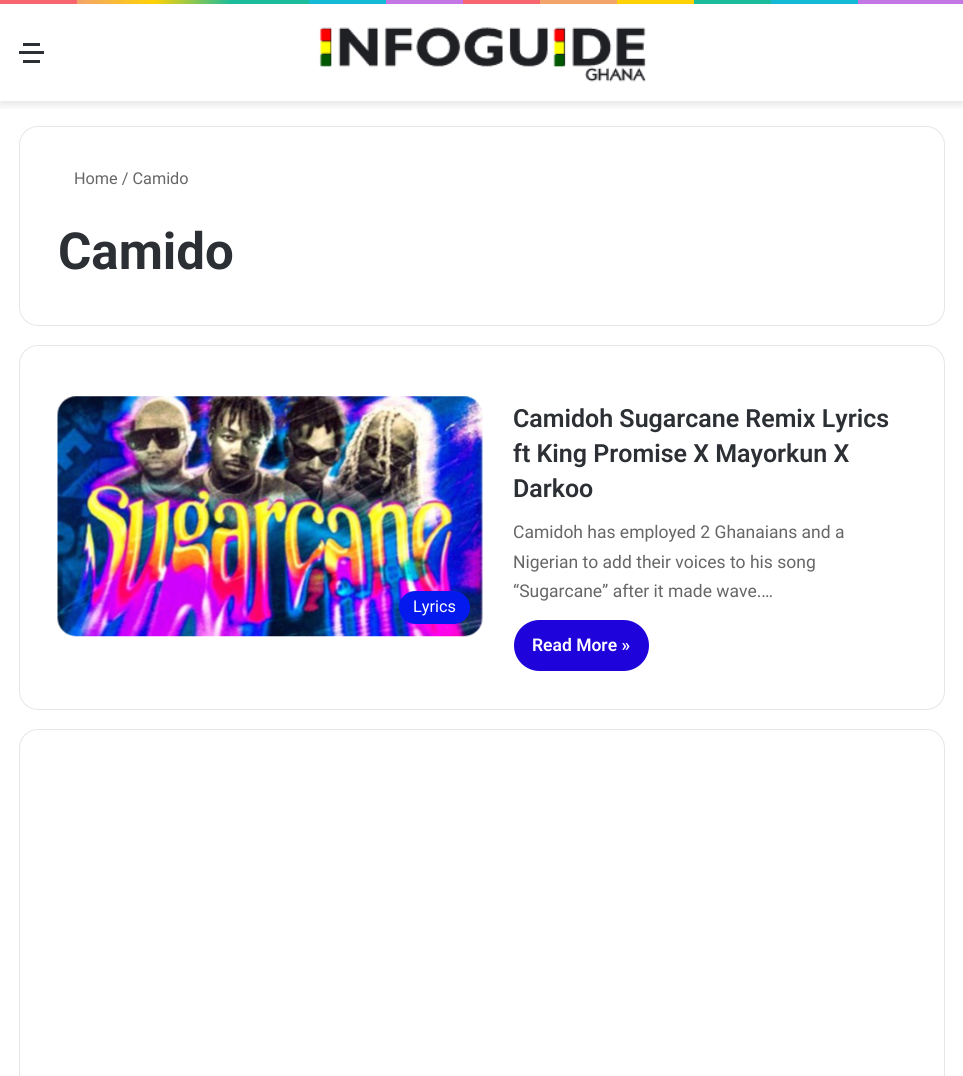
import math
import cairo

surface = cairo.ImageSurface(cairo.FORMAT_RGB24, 963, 1076)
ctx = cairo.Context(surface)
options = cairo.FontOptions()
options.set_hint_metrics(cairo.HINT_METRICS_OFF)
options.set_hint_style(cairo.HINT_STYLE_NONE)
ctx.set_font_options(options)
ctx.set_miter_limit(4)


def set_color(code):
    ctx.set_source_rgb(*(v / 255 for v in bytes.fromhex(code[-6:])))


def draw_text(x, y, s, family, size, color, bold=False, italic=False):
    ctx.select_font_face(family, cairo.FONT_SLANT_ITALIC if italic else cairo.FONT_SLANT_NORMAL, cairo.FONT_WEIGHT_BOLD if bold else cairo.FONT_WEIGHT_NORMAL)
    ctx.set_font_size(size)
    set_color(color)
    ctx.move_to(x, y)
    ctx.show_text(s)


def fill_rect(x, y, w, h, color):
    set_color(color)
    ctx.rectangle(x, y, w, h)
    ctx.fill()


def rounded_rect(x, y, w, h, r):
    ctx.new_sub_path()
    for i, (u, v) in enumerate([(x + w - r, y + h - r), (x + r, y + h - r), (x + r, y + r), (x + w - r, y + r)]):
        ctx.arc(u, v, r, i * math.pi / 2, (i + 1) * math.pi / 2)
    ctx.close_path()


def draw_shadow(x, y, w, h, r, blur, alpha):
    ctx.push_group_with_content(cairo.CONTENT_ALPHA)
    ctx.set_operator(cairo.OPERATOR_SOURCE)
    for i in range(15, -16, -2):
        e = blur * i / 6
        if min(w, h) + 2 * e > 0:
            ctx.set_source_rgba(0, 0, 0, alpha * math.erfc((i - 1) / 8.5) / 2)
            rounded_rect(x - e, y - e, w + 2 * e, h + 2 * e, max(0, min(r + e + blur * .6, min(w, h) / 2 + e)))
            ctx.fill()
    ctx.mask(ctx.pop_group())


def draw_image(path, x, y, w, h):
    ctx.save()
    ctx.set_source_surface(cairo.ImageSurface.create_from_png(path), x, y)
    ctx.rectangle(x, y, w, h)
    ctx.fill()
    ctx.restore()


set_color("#ffffff")
ctx.paint()
gradient = cairo.LinearGradient(0, 1.9, 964, 1.9)
gradient.add_color_stop_rgba(0, 0.969, 0.396, 0.439, 1)
gradient.add_color_stop_rgba(0.08, 0.969, 0.396, 0.439, 1)
gradient.add_color_stop_rgba(0.08, 0.953, 0.643, 0.42, 1)
gradient.add_color_stop_rgba(0.16, 1, 0.824, 0.02, 1)
gradient.add_color_stop_rgba(0.24, 0.106, 0.737, 0.608, 1)
gradient.add_color_stop_rgba(0.32, 0.106, 0.737, 0.608, 1)
gradient.add_color_stop_rgba(0.32, 0.078, 0.725, 0.835, 1)
gradient.add_color_stop_rgba(0.4, 0.078, 0.725, 0.835, 1)
gradient.add_color_stop_rgba(0.4, 0.765, 0.467, 0.894, 1)
gradient.add_color_stop_rgba(0.48, 0.765, 0.467, 0.894, 1)
gradient.add_color_stop_rgba(0.48, 0.969, 0.396, 0.439, 1)
gradient.add_color_stop_rgba(0.56, 0.969, 0.396, 0.439, 1)
gradient.add_color_stop_rgba(0.56, 0.953, 0.643, 0.42, 1)
gradient.add_color_stop_rgba(0.64, 0.953, 0.643, 0.42, 1)
gradient.add_color_stop_rgba(0.64, 1, 0.824, 0.02, 1)
gradient.add_color_stop_rgba(0.72, 1, 0.824, 0.02, 1)
gradient.add_color_stop_rgba(0.72, 0.106, 0.737, 0.608, 1)
gradient.add_color_stop_rgba(0.8, 0.106, 0.737, 0.608, 1)
gradient.add_color_stop_rgba(0.8, 0.078, 0.725, 0.835, 1)
gradient.add_color_stop_rgba(0.89, 0.078, 0.725, 0.835, 1)
gradient.add_color_stop_rgba(0.89, 0.765, 0.467, 0.894, 1)
gradient.add_color_stop_rgba(1, 0.765, 0.467, 0.894, 1)
ctx.set_source(gradient)
ctx.rectangle(0, 0, 963, 4)
ctx.fill()
ctx.save()
ctx.rectangle(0, 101, 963, 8)
ctx.clip()
set_color("#000000")
draw_shadow(0, 8, 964, 97, 0, 4.5, 0.1)
ctx.restore()
fill_rect(19, 51, 25, 3, "#2c2f34")
fill_rect(23, 43, 17, 3, "#2c2f34")
fill_rect(23, 60, 17, 3, "#2c2f34")
draw_image("assets/img1.png", 319, 27, 327, 55)
rounded_rect(19.5, 126.5, 925, 199, 18.5)
set_color("#e6e6e6")
ctx.set_line_width(1)
ctx.stroke()
draw_text(74, 184, "Home / Camido", "Roboto", 16.25, "#666666")
draw_text(58, 269, "Camido", "Roboto", 51, "#2c2f34", bold=True)
rounded_rect(19.5, 345.5, 925, 364, 18.5)
set_color("#e6e6e6")
ctx.stroke()
draw_image("assets/img2.png", 57, 396, 426, 241)
set_color("#0319ed")
rounded_rect(399, 591, 71, 33, 16.5)
ctx.fill()
draw_text(413, 612, "Lyrics", "Roboto", 16.25, "#ffffff")
draw_text(513, 427, "Camidoh Sugarcane Remix Lyrics", "Roboto SemiBold", 25, "#2c2f34")
draw_text(513, 462, "ft King Promise X Mayorkun X", "Roboto SemiBold", 25, "#2c2f34")
draw_text(513, 497, "Darkoo", "Roboto SemiBold", 25, "#2c2f34")
draw_text(513, 538, "Camidoh has employed 2 Ghanaians and a", "Roboto", 17.5, "#666666")
draw_text(513, 568, "Nigerian to add their voices to his song", "Roboto", 17.5, "#666666")
draw_text(513, 597, "“Sugarcane” after it made wave.…", "Roboto", 17.5, "#666666")
set_color("#1f03db")
rounded_rect(514, 620, 135, 51, 25.5)
ctx.fill()
draw_text(532, 651, "Read More »", "Roboto SemiBold", 17.5, "#ffffff")
rounded_rect(19.5, 729.5, 925, 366, 18.5)
set_color("#e6e6e6")
ctx.stroke()
surface.write_to_png("output.png")
